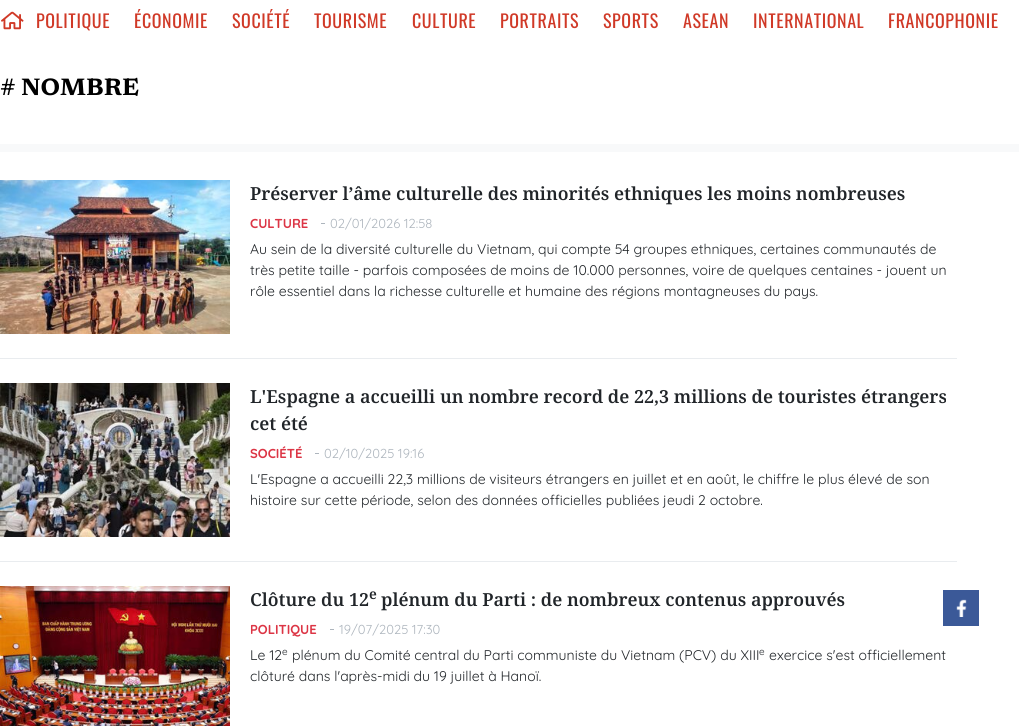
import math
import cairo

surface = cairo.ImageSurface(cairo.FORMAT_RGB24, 1019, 726)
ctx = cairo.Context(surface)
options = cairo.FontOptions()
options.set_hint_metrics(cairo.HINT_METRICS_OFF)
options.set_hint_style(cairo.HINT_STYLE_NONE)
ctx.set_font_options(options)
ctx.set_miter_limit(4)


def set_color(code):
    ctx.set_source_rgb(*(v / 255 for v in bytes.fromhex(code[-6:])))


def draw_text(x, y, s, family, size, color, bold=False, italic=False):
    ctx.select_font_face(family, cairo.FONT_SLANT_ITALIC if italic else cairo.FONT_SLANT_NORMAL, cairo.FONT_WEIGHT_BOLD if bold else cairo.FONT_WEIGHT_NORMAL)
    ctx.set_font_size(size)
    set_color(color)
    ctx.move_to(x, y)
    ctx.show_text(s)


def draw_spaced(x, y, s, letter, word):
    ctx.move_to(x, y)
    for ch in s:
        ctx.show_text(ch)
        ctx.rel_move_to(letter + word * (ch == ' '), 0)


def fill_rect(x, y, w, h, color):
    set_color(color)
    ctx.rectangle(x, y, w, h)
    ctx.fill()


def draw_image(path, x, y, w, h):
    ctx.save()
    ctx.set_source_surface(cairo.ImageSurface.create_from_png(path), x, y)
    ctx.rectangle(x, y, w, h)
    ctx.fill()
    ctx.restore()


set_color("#ffffff")
ctx.paint()
draw_image("assets/img1.png", 1, 11, 23, 19)
ctx.select_font_face("Oswald")
ctx.set_font_size(18)
set_color("#d03927")
draw_spaced(36, 28, "POLITIQUE", 0.6, 0)
draw_spaced(134, 28, "ÉCONOMIE", 0.6, 0)
draw_spaced(232, 28, "SOCIÉTÉ", 0.6, 0)
draw_spaced(314, 28, "TOURISME", 0.6, 0)
draw_spaced(412, 28, "CULTURE", 0.6, 0)
draw_spaced(500, 28, "PORTRAITS", 0.6, 0)
draw_spaced(603, 28, "SPORTS", 0.6, 0)
draw_spaced(683, 28, "ASEAN", 0.6, 0)
draw_spaced(753, 28, "INTERNATIONAL", 0.6, 0)
draw_spaced(888, 28, "FRANCOPHONIE", 0.6, 0)
draw_text(0, 95, "# NOMBRE", "Newsreader", 24, "#000000", bold=True)
fill_rect(0, 144, 1019, 8, "#f8f9fa")
draw_image("assets/img2.png", 0, 180, 230, 154)
draw_text(250, 200, "Préserver l’âme culturelle des minorités ethniques les moins nombreuses", "Noto Serif SemiBold", 18, "#212529")
draw_text(250, 228, "CULTURE", "Quicksand", 13, "#dc3545", bold=True)
fill_rect(321, 223, 4, 1, "#adb5bd")
draw_text(330, 228, "02/01/2026 12:58", "Quicksand", 13, "#adb5bd")
draw_text(250, 254, "Au sein de la diversité culturelle du Vietnam, qui compte 54 groupes ethniques, certaines communautés de", "Quicksand", 14, "#212529")
draw_text(250, 275, "très petite taille - parfois composées de moins de 10.000 personnes, voire de quelques centaines - jouent un", "Quicksand", 14, "#212529")
draw_text(250, 296, "rôle essentiel dans la richesse culturelle et humaine des régions montagneuses du pays.", "Quicksand", 14, "#212529")
fill_rect(0, 358, 957, 1, "#e9ecef")
draw_image("assets/img3.png", 0, 383, 230, 154)
draw_text(250, 403, "L'Espagne a accueilli un nombre record de 22,3 millions de touristes étrangers", "Noto Serif SemiBold", 18, "#212529")
draw_text(250, 430, "cet été", "Noto Serif SemiBold", 18, "#212529")
draw_text(250, 458, "SOCIÉTÉ", "Quicksand", 13, "#dc3545", bold=True)
fill_rect(315, 453, 4, 1, "#adb5bd")
draw_text(324, 458, "02/10/2025 19:16", "Quicksand", 13, "#adb5bd")
draw_text(250, 484, "L'Espagne a accueilli 22,3 millions de visiteurs étrangers en juillet et en août, le chiffre le plus élevé de son", "Quicksand", 14, "#212529")
draw_text(250, 505, "histoire sur cette période, selon des données officielles publiées jeudi 2 octobre.", "Quicksand", 14, "#212529")
fill_rect(0, 561, 957, 1, "#e9ecef")
draw_image("assets/img4.png", 0, 586, 230, 140)
draw_text(250, 606, "Clôture du 12", "Noto Serif SemiBold", 18, "#212529")
draw_text(369, 599, "e", "Noto Serif SemiBold", 14, "#212529")
draw_text(381, 606, "plénum du Parti : de nombreux contenus approuvés", "Noto Serif SemiBold", 18, "#212529")
draw_text(250, 634, "POLITIQUE", "Quicksand", 13, "#dc3545", bold=True)
fill_rect(330, 629, 4, 1, "#adb5bd")
draw_text(339, 634, "19/07/2025 17:30", "Quicksand", 13, "#adb5bd")
draw_text(250, 660, "Le 12", "Quicksand", 14, "#212529")
draw_text(282, 655, "e", "Quicksand", 10, "#212529")
draw_text(292, 660, "plénum du Comité central du Parti communiste du Vietnam (PCV) du XIII", "Quicksand", 14, "#212529")
draw_text(759, 655, "e", "Quicksand", 10, "#212529")
draw_text(769, 660, "exercice s'est officiellement", "Quicksand", 14, "#212529")
draw_text(250, 681, "clôturé dans l'après-midi du 19 juillet à Hanoï.", "Quicksand", 14, "#212529")
fill_rect(943, 590, 36, 36, "#3b5998")
draw_image("assets/img5.png", 956, 599, 11, 18)
surface.write_to_png("output.png")
